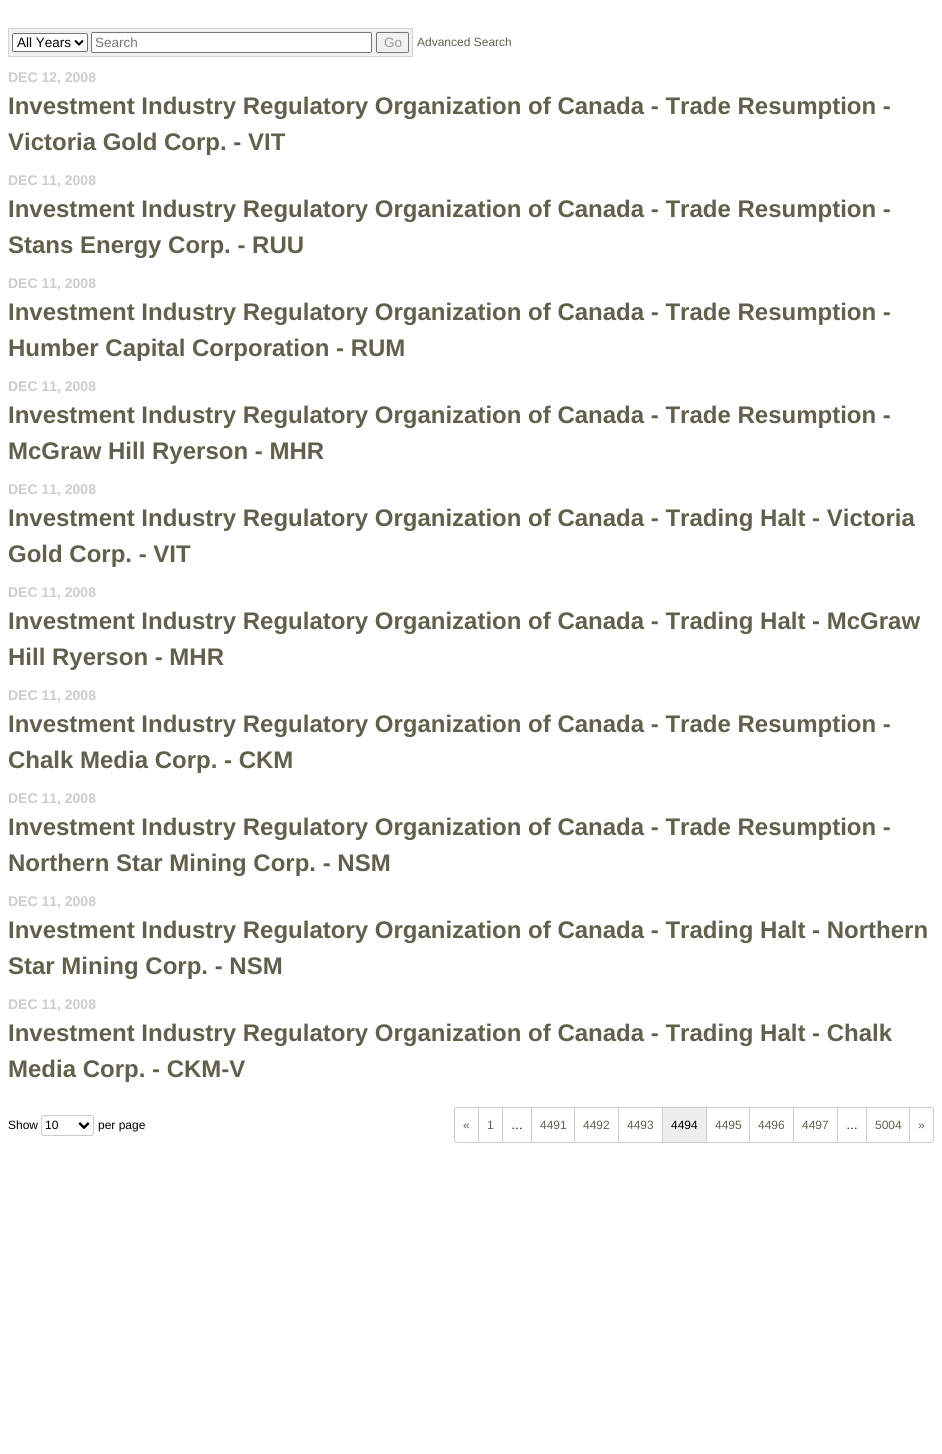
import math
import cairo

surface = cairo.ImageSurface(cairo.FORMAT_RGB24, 942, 1454)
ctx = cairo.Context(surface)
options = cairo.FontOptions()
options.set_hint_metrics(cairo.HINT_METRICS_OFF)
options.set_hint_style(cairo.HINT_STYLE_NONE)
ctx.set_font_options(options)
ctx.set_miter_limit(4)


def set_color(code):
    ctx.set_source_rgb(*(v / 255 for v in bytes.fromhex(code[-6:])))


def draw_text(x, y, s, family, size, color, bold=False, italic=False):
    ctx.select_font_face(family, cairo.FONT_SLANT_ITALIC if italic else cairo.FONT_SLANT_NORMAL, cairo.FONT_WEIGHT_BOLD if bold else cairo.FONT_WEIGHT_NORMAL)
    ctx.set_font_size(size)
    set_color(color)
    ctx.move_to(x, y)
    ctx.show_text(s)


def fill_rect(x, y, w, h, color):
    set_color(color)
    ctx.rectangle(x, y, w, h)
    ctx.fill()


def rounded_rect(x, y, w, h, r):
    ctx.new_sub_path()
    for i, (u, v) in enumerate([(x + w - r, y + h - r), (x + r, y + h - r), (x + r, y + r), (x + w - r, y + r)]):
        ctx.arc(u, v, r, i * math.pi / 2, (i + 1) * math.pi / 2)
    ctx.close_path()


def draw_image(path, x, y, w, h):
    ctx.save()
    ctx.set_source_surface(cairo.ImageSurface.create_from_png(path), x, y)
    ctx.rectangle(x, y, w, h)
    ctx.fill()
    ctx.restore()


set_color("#ffffff")
ctx.paint()
set_color("#f1f1f1")
ctx.rectangle(8.5, 28.5, 404, 28)
ctx.fill_preserve()
set_color("#d3d3d3")
ctx.set_line_width(1)
ctx.stroke()
set_color("#ffffff")
rounded_rect(12.5, 33.5, 75, 18, 1.5)
ctx.fill_preserve()
set_color("#767676")
ctx.stroke()
ctx.new_path()
ctx.move_to(75, 40.5)
ctx.line_to(79, 44.5)
ctx.line_to(83, 40.5)
set_color("#000000")
ctx.set_line_width(2)
ctx.stroke()
draw_text(17, 47, "All Years", "Liberation Sans", 13.5, "#000000")
set_color("#ffffff")
rounded_rect(91.5, 32.5, 280, 20, 1.5)
ctx.fill_preserve()
set_color("#767676")
ctx.set_line_width(1)
ctx.stroke()
draw_text(95, 47, "Search", "Liberation Sans", 13.5, "#757575")
rounded_rect(376.5, 32.5, 32, 20, 1.5)
set_color("#767676")
ctx.stroke()
draw_text(384, 47, "Go", "Liberation Sans", 13.5, "#999999")
draw_text(417, 46, "Advanced Search", "Liberation Sans", 12, "#60604d")
draw_text(8, 82, "DEC 12, 2008", "Liberation Sans", 14, "#cccccc", bold=True)
draw_text(8, 114, "Investment Industry Regulatory Organization of Canada - Trade Resumption -", "Liberation Sans", 24, "#60604d", bold=True)
draw_text(8, 150, "Victoria Gold Corp. - VIT", "Liberation Sans", 24, "#60604d", bold=True)
draw_text(8, 185, "DEC 11, 2008", "Liberation Sans", 14, "#cccccc", bold=True)
draw_text(8, 217, "Investment Industry Regulatory Organization of Canada - Trade Resumption -", "Liberation Sans", 24, "#60604d", bold=True)
draw_text(8, 253, "Stans Energy Corp. - RUU", "Liberation Sans", 24, "#60604d", bold=True)
draw_text(8, 288, "DEC 11, 2008", "Liberation Sans", 14, "#cccccc", bold=True)
draw_text(8, 320, "Investment Industry Regulatory Organization of Canada - Trade Resumption -", "Liberation Sans", 24, "#60604d", bold=True)
draw_text(8, 356, "Humber Capital Corporation - RUM", "Liberation Sans", 24, "#60604d", bold=True)
draw_text(8, 391, "DEC 11, 2008", "Liberation Sans", 14, "#cccccc", bold=True)
draw_text(8, 423, "Investment Industry Regulatory Organization of Canada - Trade Resumption -", "Liberation Sans", 24, "#60604d", bold=True)
draw_text(8, 459, "McGraw Hill Ryerson - MHR", "Liberation Sans", 24, "#60604d", bold=True)
draw_text(8, 494, "DEC 11, 2008", "Liberation Sans", 14, "#cccccc", bold=True)
draw_text(8, 526, "Investment Industry Regulatory Organization of Canada - Trading Halt - Victoria", "Liberation Sans", 24, "#60604d", bold=True)
draw_text(8, 562, "Gold Corp. - VIT", "Liberation Sans", 24, "#60604d", bold=True)
draw_text(8, 597, "DEC 11, 2008", "Liberation Sans", 14, "#cccccc", bold=True)
draw_text(8, 629, "Investment Industry Regulatory Organization of Canada - Trading Halt - McGraw", "Liberation Sans", 24, "#60604d", bold=True)
draw_text(8, 665, "Hill Ryerson - MHR", "Liberation Sans", 24, "#60604d", bold=True)
draw_text(8, 700, "DEC 11, 2008", "Liberation Sans", 14, "#cccccc", bold=True)
draw_text(8, 732, "Investment Industry Regulatory Organization of Canada - Trade Resumption -", "Liberation Sans", 24, "#60604d", bold=True)
draw_text(8, 768, "Chalk Media Corp. - CKM", "Liberation Sans", 24, "#60604d", bold=True)
draw_text(8, 803, "DEC 11, 2008", "Liberation Sans", 14, "#cccccc", bold=True)
draw_text(8, 835, "Investment Industry Regulatory Organization of Canada - Trade Resumption -", "Liberation Sans", 24, "#60604d", bold=True)
draw_text(8, 871, "Northern Star Mining Corp. - NSM", "Liberation Sans", 24, "#60604d", bold=True)
draw_text(8, 906, "DEC 11, 2008", "Liberation Sans", 14, "#cccccc", bold=True)
draw_text(8, 938, "Investment Industry Regulatory Organization of Canada - Trading Halt - Northern", "Liberation Sans", 24, "#60604d", bold=True)
draw_text(8, 974, "Star Mining Corp. - NSM", "Liberation Sans", 24, "#60604d", bold=True)
draw_text(8, 1009, "DEC 11, 2008", "Liberation Sans", 14, "#cccccc", bold=True)
draw_text(8, 1041, "Investment Industry Regulatory Organization of Canada - Trading Halt - Chalk", "Liberation Sans", 24, "#60604d", bold=True)
draw_text(8, 1077, "Media Corp. - CKM-V", "Liberation Sans", 24, "#60604d", bold=True)
draw_text(8, 1129, "Show", "Liberation Sans", 12, "#000000")
rounded_rect(41.5, 1115.5, 52, 20, 2.5)
set_color("#cccccc")
ctx.stroke()
draw_text(45, 1129, "10", "Liberation Sans", 12, "#000000")
draw_image("assets/img1.png", 78, 1122, 12, 8)
draw_text(98, 1129, "per page", "Liberation Sans", 12, "#000000")
ctx.new_path()
ctx.move_to(457, 1107.5)
ctx.line_to(478.5, 1107.5)
ctx.line_to(478.5, 1142.5)
ctx.line_to(457, 1142.5)
ctx.curve_to(455.5, 1142.5, 454.5, 1141.5, 454.5, 1140)
ctx.line_to(454.5, 1110)
ctx.curve_to(454.5, 1108.5, 455.5, 1107.5, 457, 1107.5)
ctx.close_path()
set_color("#cccccc")
ctx.stroke()
draw_text(463, 1129, "«", "Liberation Sans", 12, "#60604d")
fill_rect(479, 1107, 431, 1, "#cccccc")
fill_rect(502, 1107, 1, 36, "#cccccc")
fill_rect(479, 1142, 24, 1, "#cccccc")
draw_text(487, 1129, "1", "Liberation Sans", 12, "#60604d")
fill_rect(531, 1107, 1, 36, "#cccccc")
fill_rect(503, 1142, 29, 1, "#cccccc")
draw_text(511, 1129, "…", "Liberation Sans", 12, "#000000")
fill_rect(574, 1107, 1, 36, "#cccccc")
fill_rect(532, 1142, 43, 1, "#cccccc")
draw_text(540, 1129, "4491", "Liberation Sans", 12, "#60604d")
fill_rect(618, 1107, 1, 36, "#cccccc")
fill_rect(575, 1142, 44, 1, "#cccccc")
draw_text(583, 1129, "4492", "Liberation Sans", 12, "#60604d")
fill_rect(662, 1107, 1, 36, "#cccccc")
fill_rect(619, 1142, 44, 1, "#cccccc")
draw_text(627, 1129, "4493", "Liberation Sans", 12, "#60604d")
fill_rect(663, 1108, 43, 34, "#eeeeee")
fill_rect(706, 1107, 1, 36, "#cccccc")
fill_rect(663, 1142, 44, 1, "#cccccc")
draw_text(671, 1129, "4494", "Liberation Sans", 12, "#000000")
fill_rect(749, 1107, 1, 36, "#cccccc")
fill_rect(707, 1142, 43, 1, "#cccccc")
draw_text(715, 1129, "4495", "Liberation Sans", 12, "#60604d")
fill_rect(793, 1107, 1, 36, "#cccccc")
fill_rect(750, 1142, 44, 1, "#cccccc")
draw_text(758, 1129, "4496", "Liberation Sans", 12, "#60604d")
fill_rect(837, 1107, 1, 36, "#cccccc")
fill_rect(794, 1142, 44, 1, "#cccccc")
draw_text(802, 1129, "4497", "Liberation Sans", 12, "#60604d")
fill_rect(866, 1107, 1, 36, "#cccccc")
fill_rect(838, 1142, 29, 1, "#cccccc")
draw_text(846, 1129, "…", "Liberation Sans", 12, "#000000")
fill_rect(909, 1107, 1, 36, "#cccccc")
fill_rect(867, 1142, 43, 1, "#cccccc")
draw_text(875, 1129, "5004", "Liberation Sans", 12, "#60604d")
set_color("#cccccc")
ctx.set_fill_rule(cairo.FILL_RULE_EVEN_ODD)
ctx.new_path()
ctx.move_to(910, 1107)
ctx.line_to(931, 1107)
ctx.curve_to(932.5, 1107, 934, 1108.5, 934, 1110)
ctx.line_to(934, 1140)
ctx.curve_to(934, 1141.5, 932.5, 1143, 931, 1143)
ctx.line_to(910, 1143)
ctx.close_path()
ctx.move_to(910, 1108)
ctx.line_to(931, 1108)
ctx.curve_to(932, 1108, 933, 1109, 933, 1110)
ctx.line_to(933, 1140)
ctx.curve_to(933, 1141, 932, 1142, 931, 1142)
ctx.line_to(910, 1142)
ctx.close_path()
ctx.fill()
draw_text(918, 1129, "»", "Liberation Sans", 12, "#60604d")
surface.write_to_png("output.png")
